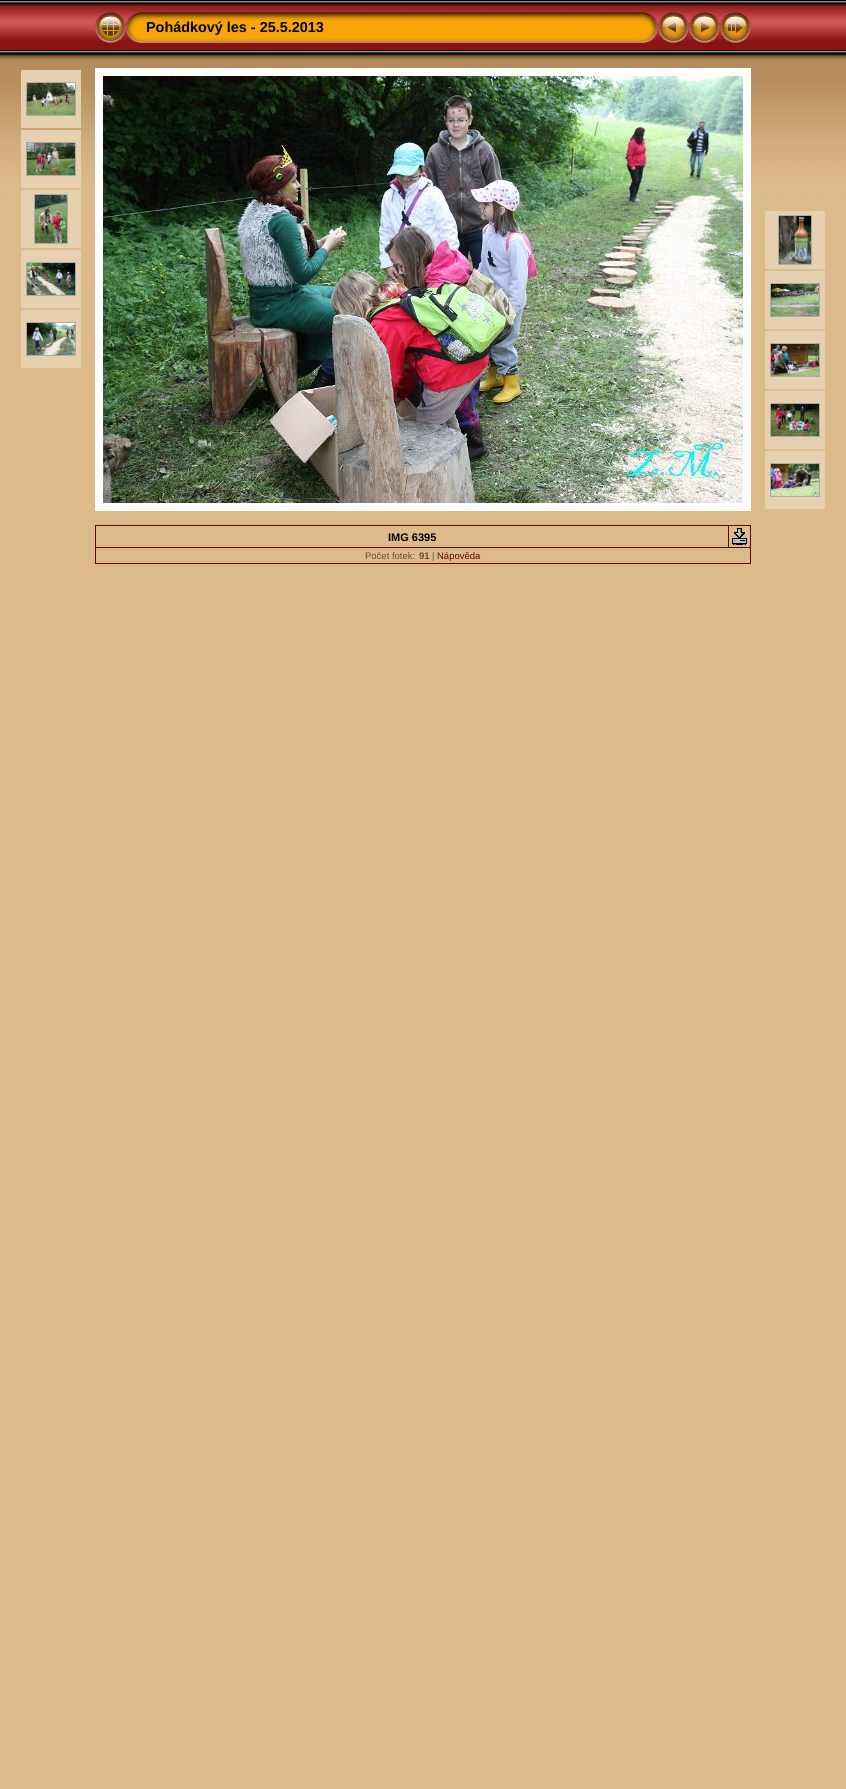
import math
import cairo

surface = cairo.ImageSurface(cairo.FORMAT_RGB24, 846, 1789)
ctx = cairo.Context(surface)
options = cairo.FontOptions()
options.set_hint_metrics(cairo.HINT_METRICS_OFF)
options.set_hint_style(cairo.HINT_STYLE_NONE)
ctx.set_font_options(options)
ctx.set_miter_limit(4)


def set_color(code):
    ctx.set_source_rgb(*(v / 255 for v in bytes.fromhex(code[-6:])))


def draw_text(x, y, s, family, size, color, bold=False, italic=False):
    ctx.select_font_face(family, cairo.FONT_SLANT_ITALIC if italic else cairo.FONT_SLANT_NORMAL, cairo.FONT_WEIGHT_BOLD if bold else cairo.FONT_WEIGHT_NORMAL)
    ctx.set_font_size(size)
    set_color(color)
    ctx.move_to(x, y)
    ctx.show_text(s)


def fill_rect(x, y, w, h, color):
    set_color(color)
    ctx.rectangle(x, y, w, h)
    ctx.fill()


def draw_image(path, x, y, w, h):
    ctx.save()
    ctx.set_source_surface(cairo.ImageSurface.create_from_png(path), x, y)
    ctx.rectangle(x, y, w, h)
    ctx.fill()
    ctx.restore()


set_color("#ddba8a")
ctx.paint()
draw_image("assets/img1.png", 0, 0, 846, 200)
draw_image("assets/img2.png", 95, 12, 31, 31)
draw_image("assets/img3.png", 126, 12, 20, 31)
draw_image("assets/img4.png", 146, 12, 492, 31)
draw_text(146, 32, "Pohádkový les - 25.5.2013", "Liberation Sans", 14.4, "#000000", bold=True)
draw_image("assets/img5.png", 638, 12, 20, 31)
draw_image("assets/img6.png", 658, 12, 31, 31)
draw_image("assets/img7.png", 689, 12, 31, 31)
draw_image("assets/img8.png", 720, 12, 31, 31)
fill_rect(21, 70, 60, 58, "#e7d0b0")
ctx.rectangle(26.5, 82.5, 49, 33)
set_color("#aaaaaa")
ctx.set_line_width(1)
ctx.stroke()
draw_image("assets/img9.png", 27, 83, 48, 32)
fill_rect(21, 130, 60, 58, "#e7d0b0")
ctx.rectangle(26.5, 142.5, 49, 33)
set_color("#aaaaaa")
ctx.stroke()
draw_image("assets/img10.png", 27, 143, 48, 32)
fill_rect(21, 190, 60, 58, "#e7d0b0")
ctx.rectangle(34.5, 194.5, 33, 49)
set_color("#aaaaaa")
ctx.stroke()
draw_image("assets/img11.png", 35, 195, 32, 48)
fill_rect(21, 250, 60, 58, "#e7d0b0")
ctx.rectangle(26.5, 262.5, 49, 33)
set_color("#aaaaaa")
ctx.stroke()
draw_image("assets/img12.png", 27, 263, 48, 32)
fill_rect(21, 310, 60, 58, "#e7d0b0")
ctx.rectangle(26.5, 322.5, 49, 33)
set_color("#aaaaaa")
ctx.stroke()
draw_image("assets/img13.png", 27, 323, 48, 32)
ctx.rectangle(99, 72, 648, 435)
set_color("#ffffff")
ctx.set_line_width(8)
ctx.stroke()
draw_image("assets/img14.png", 103, 76, 640, 427)
fill_rect(765, 211, 60, 58, "#e7d0b0")
ctx.rectangle(778.5, 215.5, 33, 49)
set_color("#aaaaaa")
ctx.set_line_width(1)
ctx.stroke()
draw_image("assets/img15.png", 779, 216, 32, 48)
fill_rect(765, 271, 60, 58, "#e7d0b0")
ctx.rectangle(770.5, 283.5, 49, 33)
set_color("#aaaaaa")
ctx.stroke()
draw_image("assets/img16.png", 771, 284, 48, 32)
fill_rect(765, 331, 60, 58, "#e7d0b0")
ctx.rectangle(770.5, 343.5, 49, 33)
set_color("#aaaaaa")
ctx.stroke()
draw_image("assets/img17.png", 771, 344, 48, 32)
fill_rect(765, 391, 60, 58, "#e7d0b0")
ctx.rectangle(770.5, 403.5, 49, 33)
set_color("#aaaaaa")
ctx.stroke()
draw_image("assets/img18.png", 771, 404, 48, 32)
fill_rect(765, 451, 60, 58, "#e7d0b0")
ctx.rectangle(770.5, 463.5, 49, 33)
set_color("#aaaaaa")
ctx.stroke()
draw_image("assets/img19.png", 771, 464, 48, 32)
fill_rect(95, 525, 656, 1, "#610505")
fill_rect(750, 525, 1, 39, "#610505")
fill_rect(95, 563, 656, 1, "#610505")
fill_rect(95, 525, 1, 39, "#610505")
draw_text(388, 541, "IMG 6395", "Liberation Sans", 11, "#000000", bold=True)
fill_rect(95, 547, 656, 1, "#610505")
fill_rect(728, 525, 1, 23, "#610505")
draw_image("assets/img20.png", 732, 528, 15, 17)
draw_text(365, 559, "Počet fotek:", "Liberation Sans", 9.5, "#644e33")
draw_text(419, 559, "91", "Liberation Sans", 9.5, "#644e33", bold=True)
draw_text(432, 559, "|", "Liberation Sans", 9.5, "#644e33")
draw_text(437, 559, "Nápověda", "Liberation Sans", 9.5, "#610505")
surface.write_to_png("output.png")
